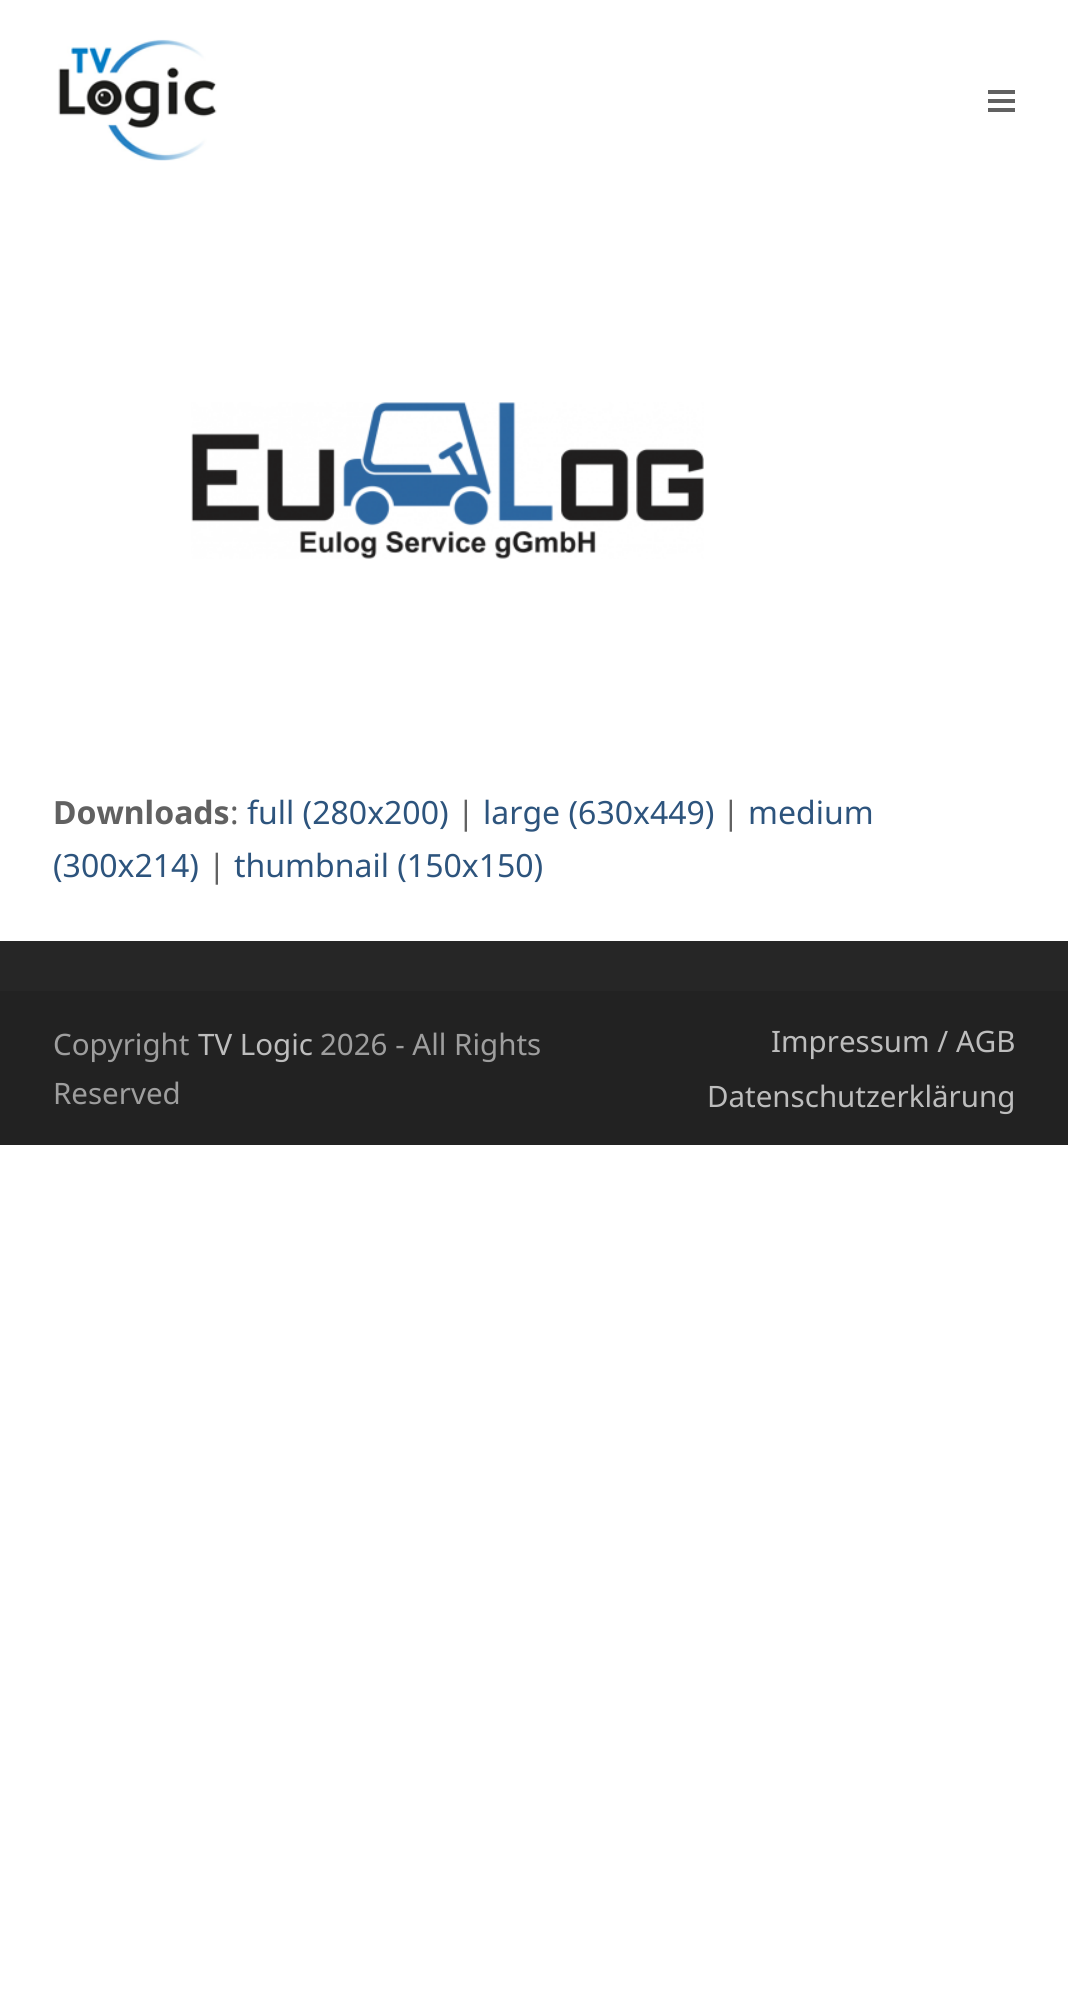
import math
import cairo

surface = cairo.ImageSurface(cairo.FORMAT_RGB24, 1068, 2005)
ctx = cairo.Context(surface)
options = cairo.FontOptions()
options.set_hint_metrics(cairo.HINT_METRICS_OFF)
options.set_hint_style(cairo.HINT_STYLE_NONE)
ctx.set_font_options(options)
ctx.set_miter_limit(4)


def set_color(code):
    ctx.set_source_rgb(*(v / 255 for v in bytes.fromhex(code[-6:])))


def draw_text(x, y, s, family, size, color, bold=False, italic=False):
    ctx.select_font_face(family, cairo.FONT_SLANT_ITALIC if italic else cairo.FONT_SLANT_NORMAL, cairo.FONT_WEIGHT_BOLD if bold else cairo.FONT_WEIGHT_NORMAL)
    ctx.set_font_size(size)
    set_color(color)
    ctx.move_to(x, y)
    ctx.show_text(s)


def fill_rect(x, y, w, h, color):
    set_color(color)
    ctx.rectangle(x, y, w, h)
    ctx.fill()


def draw_image(path, x, y, w, h):
    ctx.save()
    ctx.set_source_surface(cairo.ImageSurface.create_from_png(path), x, y)
    ctx.rectangle(x, y, w, h)
    ctx.fill()
    ctx.restore()


set_color("#ffffff")
ctx.paint()
draw_image("assets/img1.png", 58, 39, 159, 122)
fill_rect(988, 99, 27, 4, "#616161")
fill_rect(988, 90, 27, 4, "#616161")
fill_rect(988, 108, 27, 4, "#616161")
draw_image("assets/img2.png", 191, 402, 513, 157)
draw_text(53, 824, "Downloads", "Noto Sans", 32, "#616161", bold=True)
draw_text(230, 824, ":", "Noto Sans", 32, "#616161")
draw_text(247, 824, "full (280x200)", "Noto Sans", 32, "#2d547d")
draw_text(457, 824, "|", "Noto Sans", 32, "#616161")
draw_text(483, 824, "large (630x449)", "Noto Sans", 32, "#2d547d")
draw_text(722, 824, "|", "Noto Sans", 32, "#616161")
draw_text(748, 824, "medium", "Noto Sans", 32, "#2d547d")
draw_text(53, 877, "(300x214)", "Noto Sans", 32, "#2d547d")
draw_text(208, 877, "|", "Noto Sans", 32, "#616161")
draw_text(234, 877, "thumbnail (150x150)", "Noto Sans", 32, "#2d547d")
fill_rect(0, 941, 1068, 50, "#262626")
fill_rect(0, 991, 1068, 154, "#222222")
draw_text(53, 1055, "Copyright", "Noto Sans", 29.5, "#9e9e9e")
draw_text(198, 1055, "TV Logic", "Noto Sans", 29.5, "#bdbdbd")
draw_text(320, 1055, "2026 - All Rights", "Noto Sans", 29.5, "#9e9e9e")
draw_text(53, 1104, "Reserved", "Noto Sans", 29.5, "#9e9e9e")
draw_text(771, 1052, "Impressum / AGB", "Noto Sans", 29.5, "#bdbdbd")
draw_text(707, 1107, "Datenschutzerklärung", "Noto Sans", 29.5, "#bdbdbd")
surface.write_to_png("output.png")
